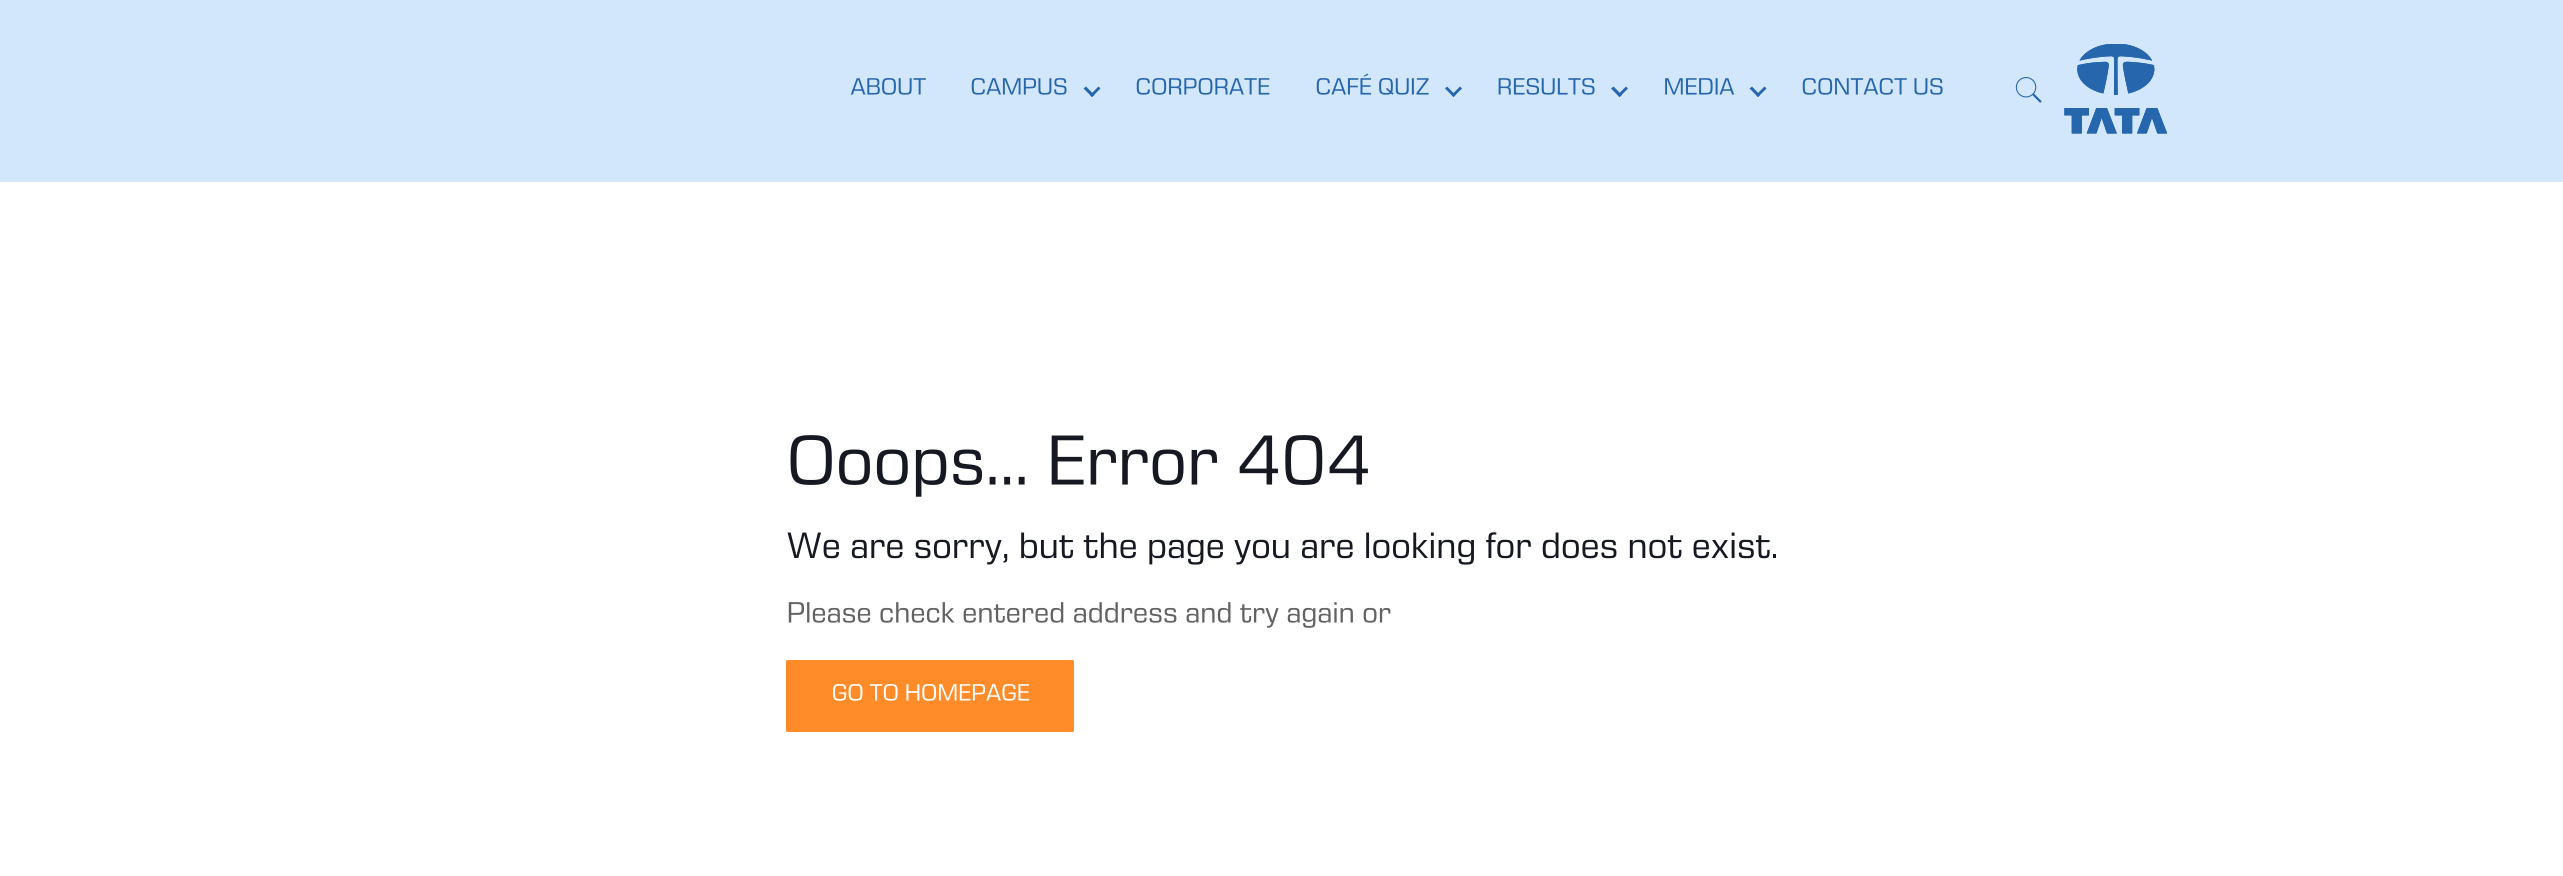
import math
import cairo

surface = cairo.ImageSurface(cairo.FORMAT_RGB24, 2563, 876)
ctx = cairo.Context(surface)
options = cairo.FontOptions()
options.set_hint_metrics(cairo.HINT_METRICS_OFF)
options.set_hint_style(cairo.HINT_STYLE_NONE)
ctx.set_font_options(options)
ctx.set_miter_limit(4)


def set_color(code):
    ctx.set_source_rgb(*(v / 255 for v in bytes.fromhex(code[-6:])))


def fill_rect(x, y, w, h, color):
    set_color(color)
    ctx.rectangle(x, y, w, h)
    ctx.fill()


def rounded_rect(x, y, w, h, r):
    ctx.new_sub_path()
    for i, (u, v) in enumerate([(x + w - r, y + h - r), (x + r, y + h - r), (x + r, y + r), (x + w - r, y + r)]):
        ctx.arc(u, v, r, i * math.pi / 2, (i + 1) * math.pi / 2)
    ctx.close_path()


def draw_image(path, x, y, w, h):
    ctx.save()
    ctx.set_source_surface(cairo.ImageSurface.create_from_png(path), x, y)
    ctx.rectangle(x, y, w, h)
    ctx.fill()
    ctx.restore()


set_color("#ffffff")
ctx.paint()
fill_rect(0, 0, 2563, 182, "#d3e7fc")
draw_image("assets/img1.png", 850, 78, 76, 17)
draw_image("assets/img2.png", 971, 78, 96, 17)
set_color("#2666ad")
ctx.new_path()
ctx.move_to(1098.5, 86.5)
ctx.line_to(1100.5, 88.5)
ctx.line_to(1092, 97)
ctx.line_to(1090, 95)
ctx.close_path()
ctx.fill()
ctx.new_path()
ctx.move_to(1086, 86.5)
ctx.line_to(1094.5, 95)
ctx.line_to(1092, 97)
ctx.line_to(1083.5, 88.5)
ctx.close_path()
ctx.fill()
draw_image("assets/img3.png", 1136, 78, 134, 17)
draw_image("assets/img4.png", 1316, 73, 113, 22)
ctx.new_path()
ctx.move_to(1460, 86.5)
ctx.line_to(1462, 88.5)
ctx.line_to(1453.5, 97)
ctx.line_to(1451.5, 95)
ctx.close_path()
ctx.fill()
ctx.new_path()
ctx.move_to(1447, 86.5)
ctx.line_to(1455.5, 95)
ctx.line_to(1453.5, 97)
ctx.line_to(1445, 88.5)
ctx.close_path()
ctx.fill()
draw_image("assets/img5.png", 1498, 78, 97, 17)
ctx.new_path()
ctx.move_to(1626, 86.5)
ctx.line_to(1628, 88.5)
ctx.line_to(1619.5, 97)
ctx.line_to(1617.5, 95)
ctx.close_path()
ctx.fill()
ctx.new_path()
ctx.move_to(1613.5, 86.5)
ctx.line_to(1622, 95)
ctx.line_to(1619.5, 97)
ctx.line_to(1611, 88.5)
ctx.close_path()
ctx.fill()
draw_image("assets/img6.png", 1665, 78, 70, 17)
ctx.new_path()
ctx.move_to(1764.5, 86.5)
ctx.line_to(1766.5, 88.5)
ctx.line_to(1758, 97)
ctx.line_to(1756, 95)
ctx.close_path()
ctx.fill()
ctx.new_path()
ctx.move_to(1752, 86.5)
ctx.line_to(1760, 95)
ctx.line_to(1758, 97)
ctx.line_to(1749.5, 88.5)
ctx.close_path()
ctx.fill()
draw_image("assets/img7.png", 1802, 78, 141, 17)
draw_image("assets/img8.png", 2015, 77, 27, 26)
draw_image("assets/img9.png", 2064, 44, 103, 90)
draw_image("assets/img10.png", 790, 435, 578, 62)
draw_image("assets/img11.png", 787, 532, 989, 33)
draw_image("assets/img12.png", 788, 602, 603, 26)
set_color("#ff8c29")
rounded_rect(786, 660, 288, 72, 1.5)
ctx.fill()
draw_image("assets/img13.png", 833, 684, 197, 17)
surface.write_to_png("output.png")
